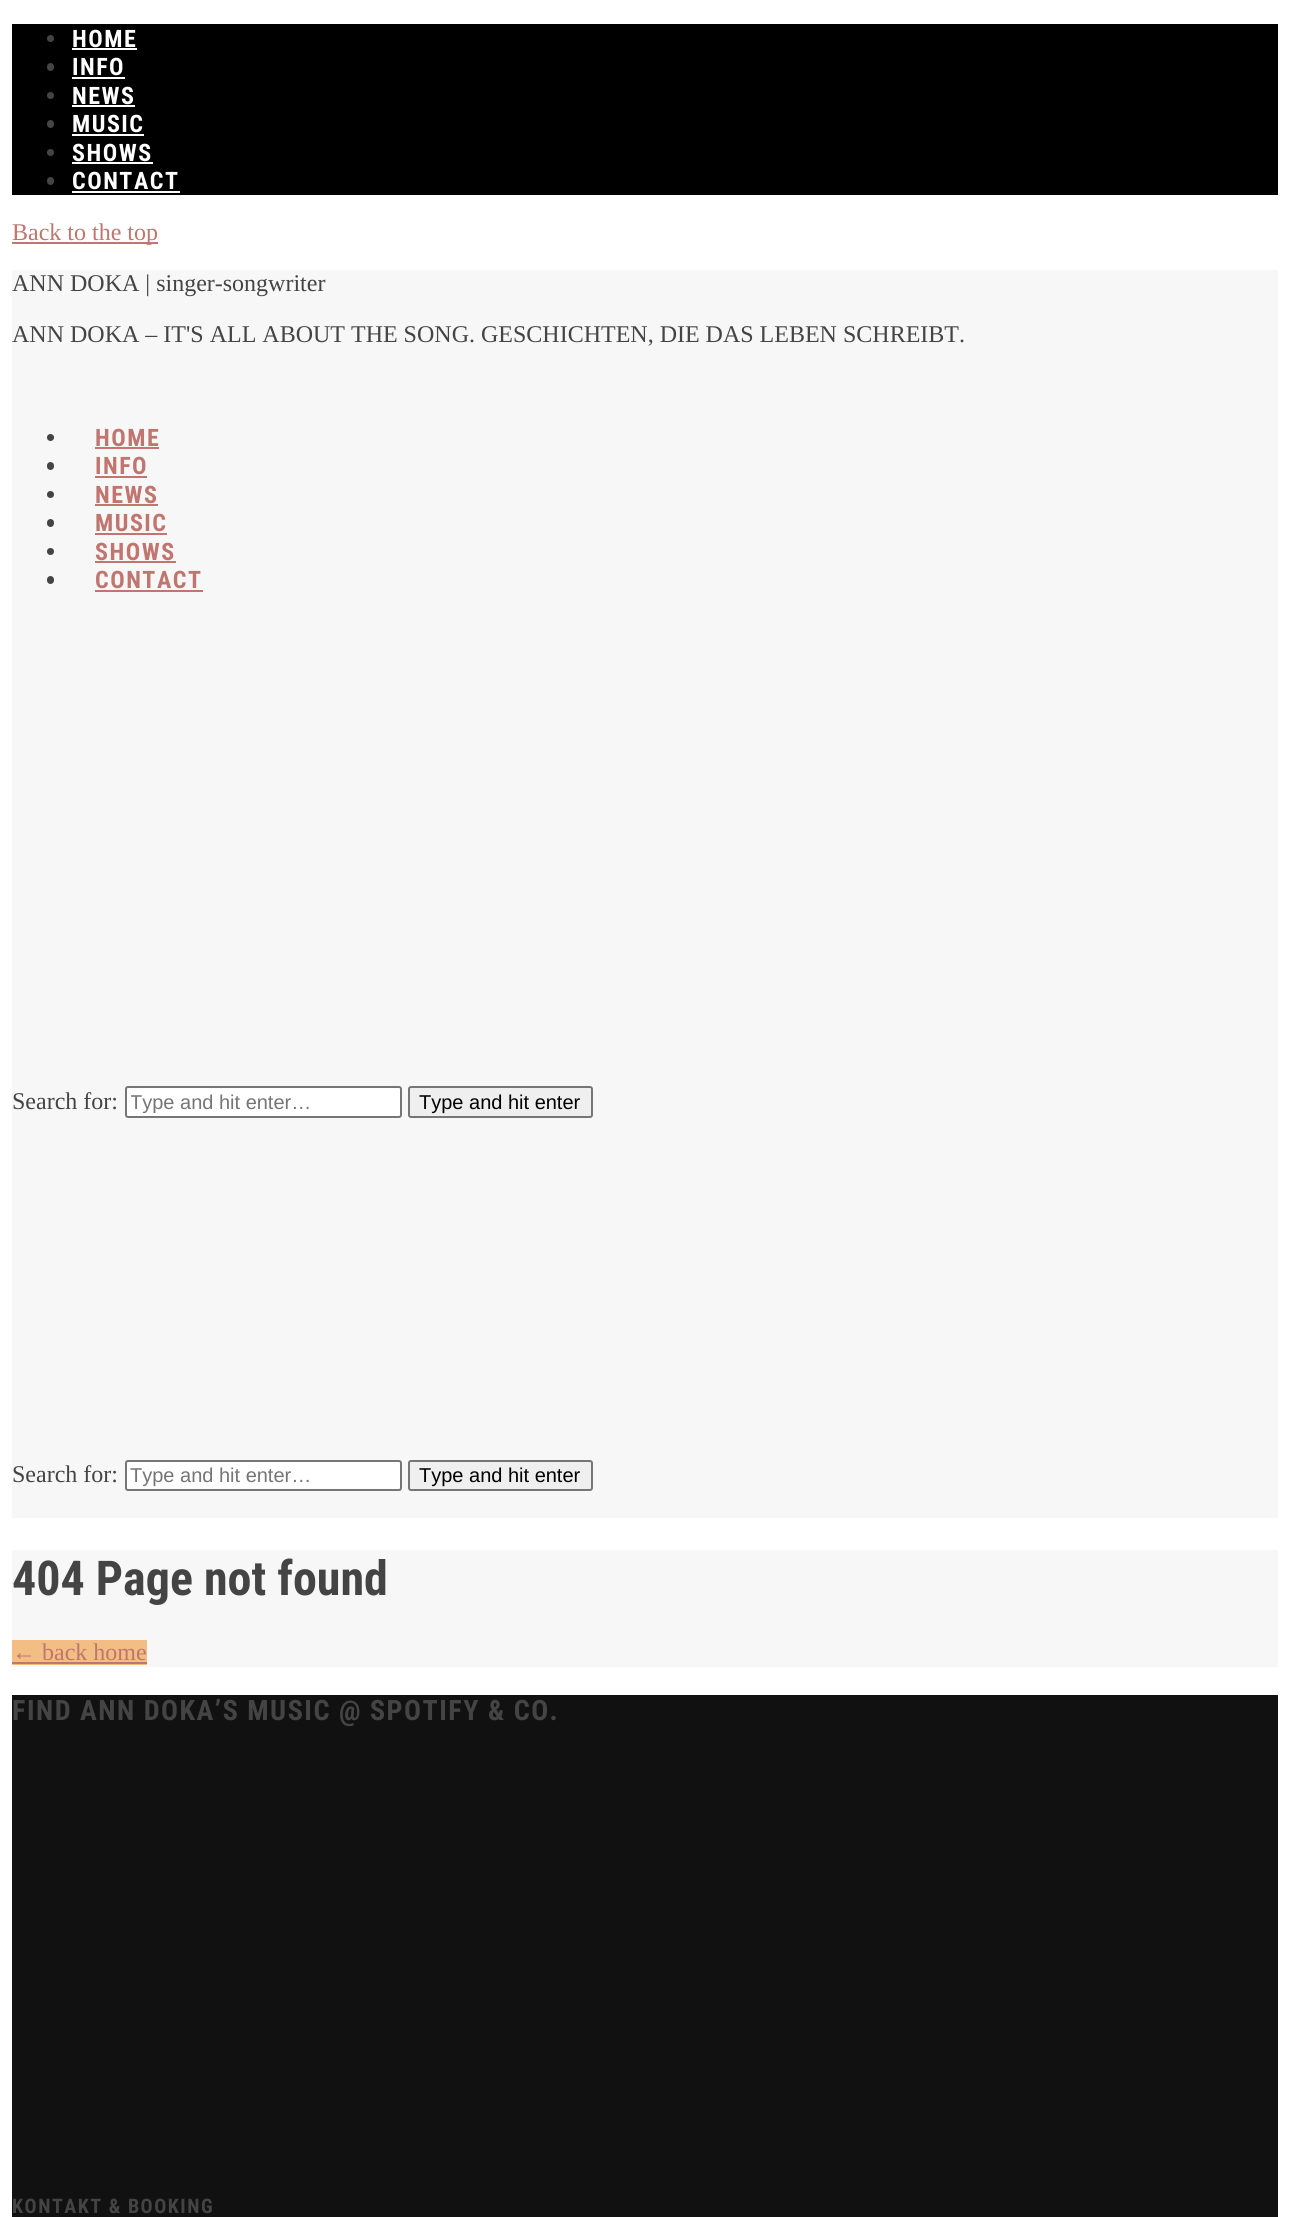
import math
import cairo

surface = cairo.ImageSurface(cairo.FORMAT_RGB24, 1290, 2217)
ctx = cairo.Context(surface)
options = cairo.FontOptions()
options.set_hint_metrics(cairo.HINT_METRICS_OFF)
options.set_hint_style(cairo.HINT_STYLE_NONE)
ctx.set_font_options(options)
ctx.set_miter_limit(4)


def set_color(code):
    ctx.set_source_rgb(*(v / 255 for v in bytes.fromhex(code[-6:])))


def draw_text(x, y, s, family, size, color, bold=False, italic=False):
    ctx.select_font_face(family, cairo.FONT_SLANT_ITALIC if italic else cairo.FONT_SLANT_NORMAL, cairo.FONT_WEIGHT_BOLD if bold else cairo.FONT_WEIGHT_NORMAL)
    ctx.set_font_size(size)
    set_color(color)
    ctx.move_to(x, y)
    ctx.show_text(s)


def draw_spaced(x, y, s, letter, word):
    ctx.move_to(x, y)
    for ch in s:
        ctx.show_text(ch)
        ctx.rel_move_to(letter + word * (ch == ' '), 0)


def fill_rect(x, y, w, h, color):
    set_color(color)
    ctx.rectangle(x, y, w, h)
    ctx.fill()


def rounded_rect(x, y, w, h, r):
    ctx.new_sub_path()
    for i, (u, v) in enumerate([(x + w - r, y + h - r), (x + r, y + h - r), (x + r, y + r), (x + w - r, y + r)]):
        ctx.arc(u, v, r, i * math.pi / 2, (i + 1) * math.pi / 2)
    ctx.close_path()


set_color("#ffffff")
ctx.paint()
fill_rect(12, 24, 1266, 171, "#000000")
set_color("#444444")
ctx.arc(50.5, 38.5, 3.5, 0, 2 * math.pi)
ctx.fill()
ctx.select_font_face("Roboto Condensed", cairo.FONT_SLANT_NORMAL, cairo.FONT_WEIGHT_BOLD)
ctx.set_font_size(24)
set_color("#ffffff")
draw_spaced(72, 47, "HOME", 1.5, 0)
fill_rect(72, 48, 65, 2, "#ffffff")
set_color("#444444")
rounded_rect(47, 63, 7, 8, 3.5)
ctx.fill()
set_color("#ffffff")
draw_spaced(72, 75, "INFO", 1.5, 0)
fill_rect(72, 77, 53, 2, "#ffffff")
set_color("#444444")
ctx.new_path()
ctx.arc(50.5, 95.5, 3.5, 0, 2 * math.pi)
ctx.fill()
set_color("#ffffff")
draw_spaced(72, 104, "NEWS", 1.5, 0)
fill_rect(72, 105, 63, 2, "#ffffff")
set_color("#444444")
rounded_rect(47, 120, 7, 8, 3.5)
ctx.fill()
set_color("#ffffff")
draw_spaced(72, 132, "MUSIC", 1.5, 0)
fill_rect(72, 134, 72, 2, "#ffffff")
set_color("#444444")
ctx.new_path()
ctx.arc(50.5, 152.5, 3.5, 0, 2 * math.pi)
ctx.fill()
set_color("#ffffff")
draw_spaced(72, 161, "SHOWS", 1.5, 0)
fill_rect(72, 162, 81, 2, "#ffffff")
set_color("#444444")
rounded_rect(47, 177, 7, 8, 3.5)
ctx.fill()
set_color("#ffffff")
draw_spaced(72, 189, "CONTACT", 1.5, 0)
fill_rect(72, 191, 108, 2, "#ffffff")
fill_rect(12, 242, 146, 2, "#c1756f")
draw_text(12, 240, "Back to the top", "Liberation Serif", 24, "#c1756f")
fill_rect(12, 270, 1266, 1248, "#f7f7f7")
draw_text(12, 291, "ANN DOKA | singer-songwriter", "Liberation Serif", 24, "#444444")
draw_text(12, 342, "ANN DOKA – IT'S ALL ABOUT THE SONG. GESCHICHTEN, DIE DAS LEBEN SCHREIBT.", "Liberation Serif", 24, "#444444")
ctx.new_path()
ctx.arc(50.5, 437.5, 3.5, 0, 2 * math.pi)
ctx.fill()
ctx.select_font_face("Roboto Condensed", cairo.FONT_SLANT_NORMAL, cairo.FONT_WEIGHT_BOLD)
set_color("#c1756f")
draw_spaced(95, 446, "HOME", 1.5, 0)
fill_rect(95, 447, 64, 2, "#c1756f")
set_color("#444444")
rounded_rect(47, 462, 7, 8, 3.5)
ctx.fill()
set_color("#c1756f")
draw_spaced(95, 474, "INFO", 1.5, 0)
fill_rect(95, 476, 52, 2, "#c1756f")
set_color("#444444")
ctx.new_path()
ctx.arc(50.5, 494.5, 3.5, 0, 2 * math.pi)
ctx.fill()
set_color("#c1756f")
draw_spaced(95, 503, "NEWS", 1.5, 0)
fill_rect(95, 504, 63, 2, "#c1756f")
set_color("#444444")
rounded_rect(47, 519, 7, 8, 3.5)
ctx.fill()
set_color("#c1756f")
draw_spaced(95, 531, "MUSIC", 1.5, 0)
fill_rect(95, 533, 72, 2, "#c1756f")
set_color("#444444")
ctx.new_path()
ctx.arc(50.5, 551.5, 3.5, 0, 2 * math.pi)
ctx.fill()
set_color("#c1756f")
draw_spaced(95, 560, "SHOWS", 1.5, 0)
fill_rect(95, 561, 81, 2, "#c1756f")
set_color("#444444")
rounded_rect(47, 576, 7, 8, 3.5)
ctx.fill()
set_color("#c1756f")
draw_spaced(95, 588, "CONTACT", 1.5, 0)
fill_rect(95, 590, 108, 2, "#c1756f")
draw_text(12, 1109, "Search for:", "Liberation Serif", 24, "#444444")
set_color("#ffffff")
rounded_rect(126, 1087, 275, 30, 2)
ctx.fill_preserve()
set_color("#767676")
ctx.stroke()
ctx.save()
ctx.rectangle(131, 1091, 246, 22)
ctx.clip()
draw_text(130, 1109, "Type and hit enter…", "Liberation Sans", 20, "#757575")
ctx.restore()
set_color("#efefef")
rounded_rect(409, 1087, 183, 30, 2)
ctx.fill_preserve()
set_color("#767676")
ctx.stroke()
draw_text(419, 1109, "Type and hit enter", "Liberation Sans", 20, "#000000")
draw_text(12, 1482, "Search for:", "Liberation Serif", 24, "#444444")
set_color("#ffffff")
rounded_rect(126, 1461, 275, 29, 2)
ctx.fill_preserve()
set_color("#767676")
ctx.stroke()
draw_text(130, 1482, "Type and hit enter…", "Liberation Sans", 20, "#757575")
set_color("#efefef")
rounded_rect(409, 1461, 183, 29, 2)
ctx.fill_preserve()
set_color("#767676")
ctx.stroke()
draw_text(419, 1482, "Type and hit enter", "Liberation Sans", 20, "#000000")
fill_rect(12, 1550, 1266, 117, "#f7f7f7")
draw_text(12, 1595, "404 Page not found", "Roboto Condensed", 48, "#444444", bold=True)
fill_rect(12, 1640, 135, 25, "#f2be83")
draw_text(12, 1660, "← back home", "Liberation Serif", 24, "#c1756f")
fill_rect(12, 1662, 135, 2, "#c1756f")
fill_rect(12, 1695, 1266, 522, "#111111")
ctx.select_font_face("Roboto Condensed", cairo.FONT_SLANT_NORMAL, cairo.FONT_WEIGHT_BOLD)
ctx.set_font_size(28.1)
set_color("#444444")
draw_spaced(12, 1720, "FIND ANN DOKA’S MUSIC @ SPOTIFY & CO.", 1.5, 0)
ctx.set_font_size(20)
draw_spaced(12, 2213, "KONTAKT & BOOKING", 1.5, 0)
surface.write_to_png("output.png")
